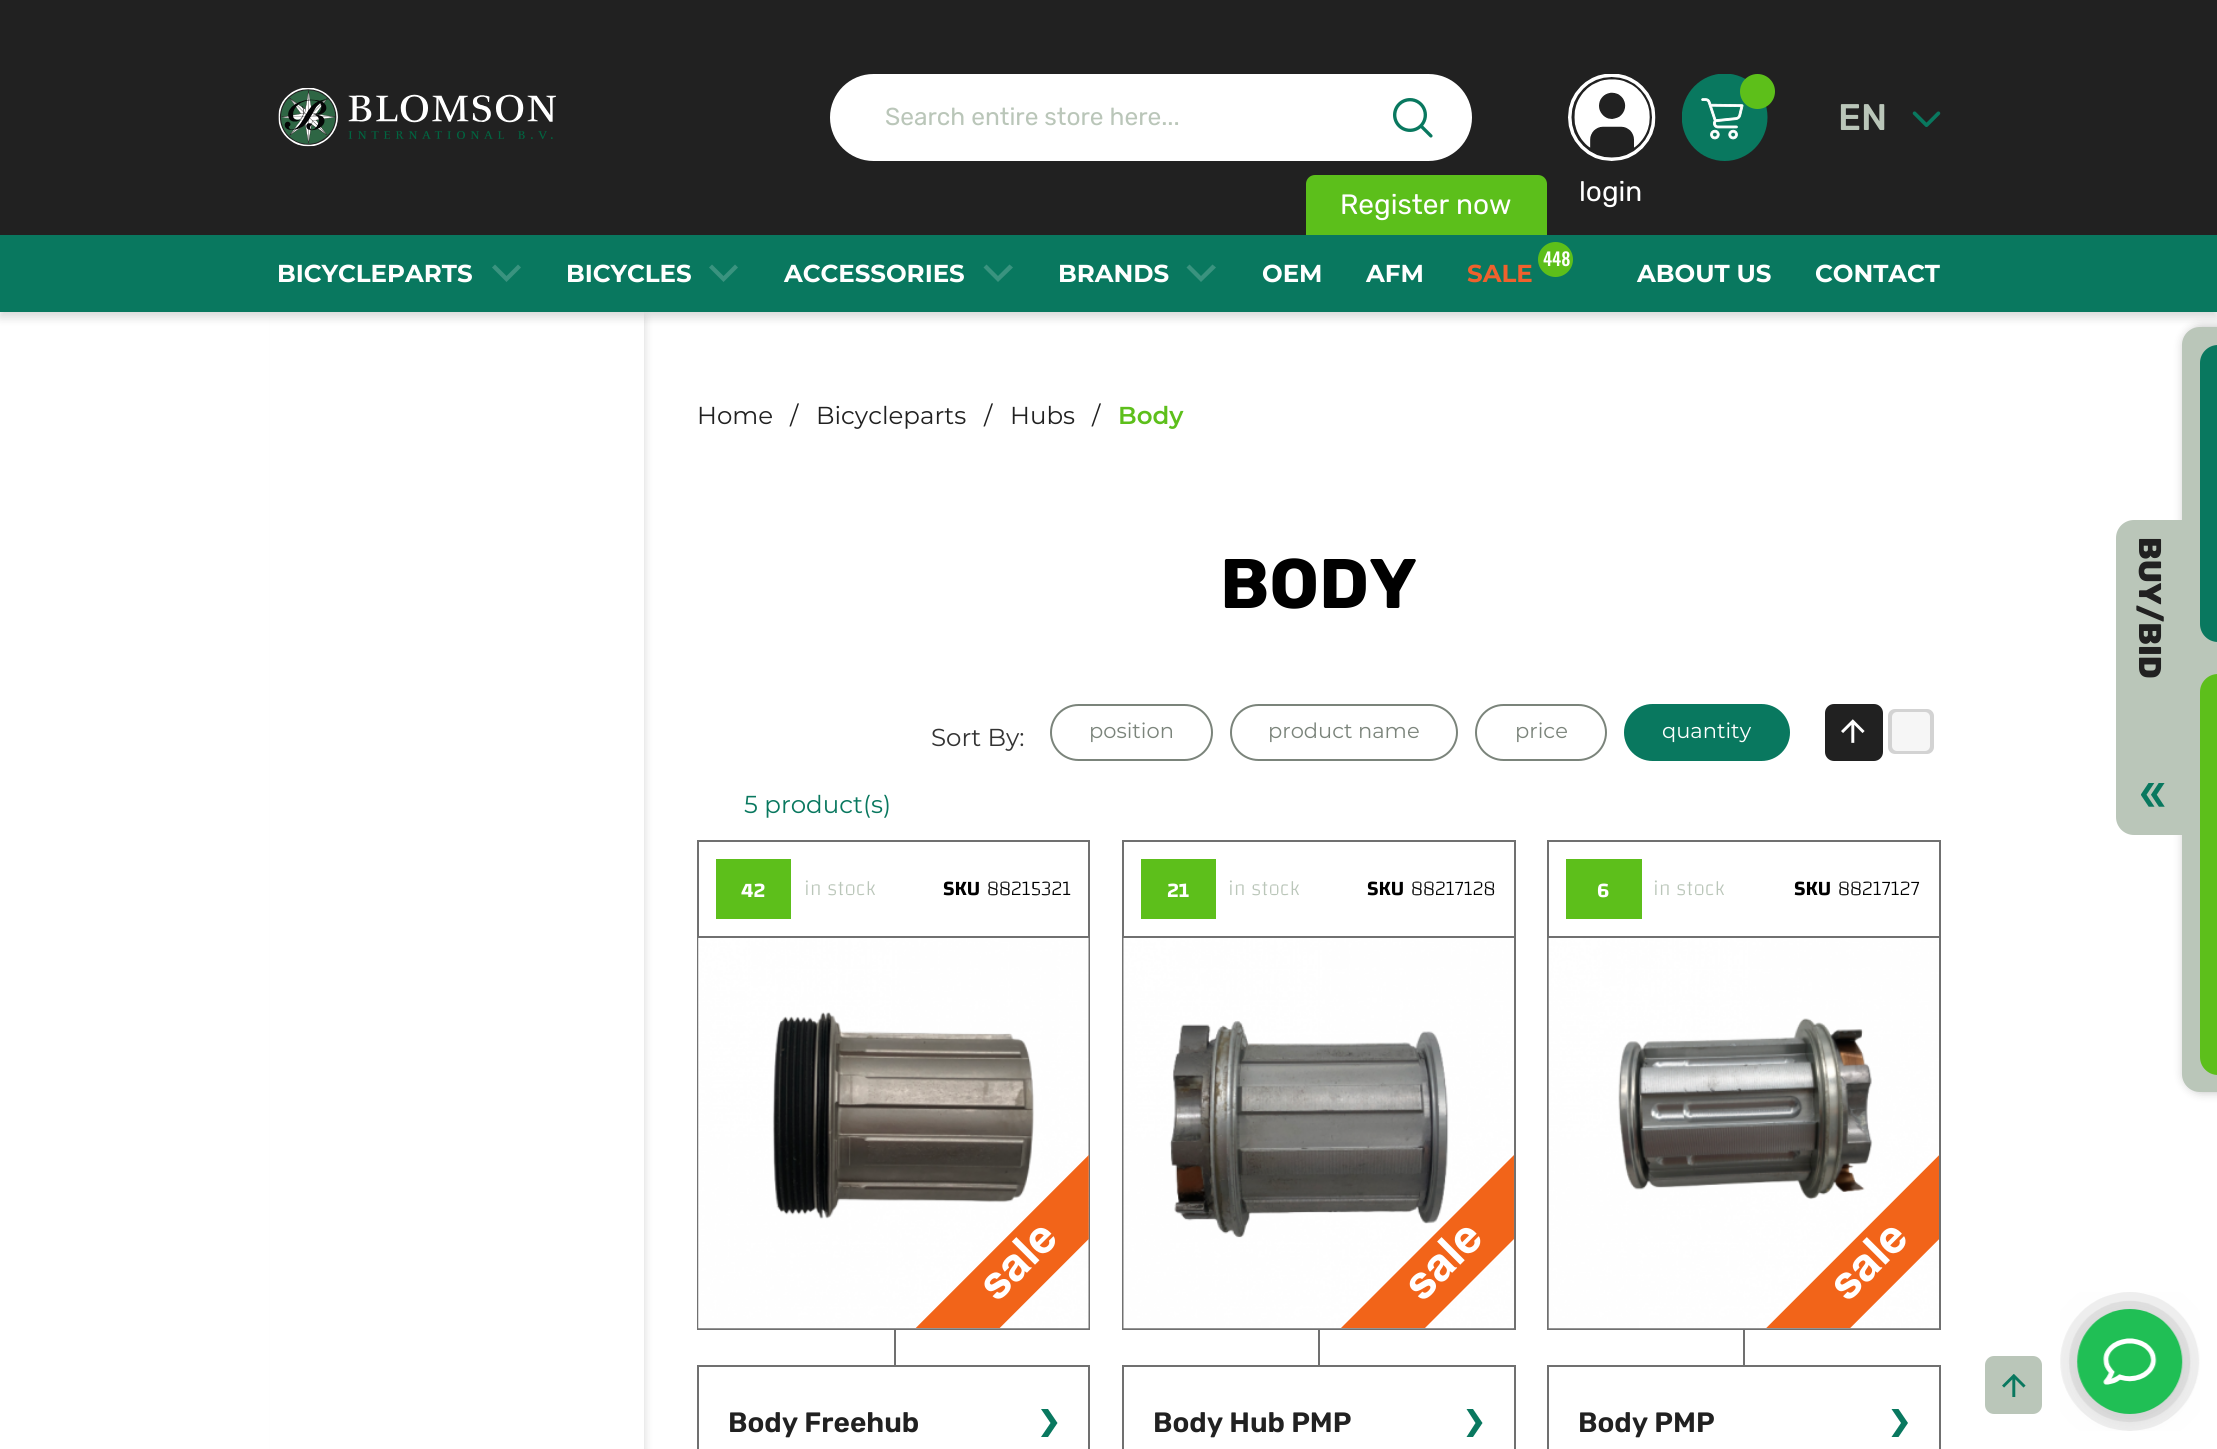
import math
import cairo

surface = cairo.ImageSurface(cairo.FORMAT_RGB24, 2217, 1449)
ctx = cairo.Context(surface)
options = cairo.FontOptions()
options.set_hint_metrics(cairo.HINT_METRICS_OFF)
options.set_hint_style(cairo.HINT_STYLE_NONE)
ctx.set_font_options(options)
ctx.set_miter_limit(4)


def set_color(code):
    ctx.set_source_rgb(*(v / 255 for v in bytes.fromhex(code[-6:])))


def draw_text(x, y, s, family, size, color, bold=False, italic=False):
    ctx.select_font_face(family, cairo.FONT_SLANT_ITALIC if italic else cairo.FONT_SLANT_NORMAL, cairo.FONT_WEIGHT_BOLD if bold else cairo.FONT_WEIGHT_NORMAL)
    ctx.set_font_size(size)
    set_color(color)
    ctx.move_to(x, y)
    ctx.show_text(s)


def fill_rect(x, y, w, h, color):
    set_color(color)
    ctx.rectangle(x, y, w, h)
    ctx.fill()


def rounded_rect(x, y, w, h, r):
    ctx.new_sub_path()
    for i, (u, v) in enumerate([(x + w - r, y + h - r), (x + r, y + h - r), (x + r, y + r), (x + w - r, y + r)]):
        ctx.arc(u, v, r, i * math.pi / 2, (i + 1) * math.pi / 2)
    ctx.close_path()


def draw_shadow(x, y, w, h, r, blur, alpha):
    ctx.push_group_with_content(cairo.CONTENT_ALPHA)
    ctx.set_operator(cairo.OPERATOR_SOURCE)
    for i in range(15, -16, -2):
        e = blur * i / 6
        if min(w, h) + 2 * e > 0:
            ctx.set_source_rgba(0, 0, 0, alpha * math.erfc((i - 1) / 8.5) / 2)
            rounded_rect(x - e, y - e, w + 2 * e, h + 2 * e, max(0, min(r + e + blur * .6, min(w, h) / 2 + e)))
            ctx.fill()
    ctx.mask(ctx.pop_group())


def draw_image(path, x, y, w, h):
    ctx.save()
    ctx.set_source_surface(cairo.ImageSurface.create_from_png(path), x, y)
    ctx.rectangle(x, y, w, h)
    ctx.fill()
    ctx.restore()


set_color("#ffffff")
ctx.paint()
ctx.save()
ctx.set_fill_rule(cairo.FILL_RULE_EVEN_ODD)
ctx.new_path()
ctx.move_to(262, 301)
ctx.line_to(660, 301)
ctx.line_to(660, 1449)
ctx.line_to(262, 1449)
ctx.close_path()
ctx.move_to(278, 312)
ctx.line_to(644, 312)
ctx.line_to(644, 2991)
ctx.line_to(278, 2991)
ctx.close_path()
ctx.clip()
set_color("#000000")
draw_shadow(278, 317, 366, 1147, 0, 5, 0.16)
ctx.restore()
fill_rect(270, 312, 8, 1137, "#ffffff")
set_color("#000000")
draw_shadow(2184, 327, 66, 765, 18, 5, 0.26)
set_color("#bac6b9")
ctx.new_path()
ctx.move_to(2200, 327)
ctx.line_to(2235, 327)
ctx.line_to(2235, 1092)
ctx.line_to(2200, 1092)
ctx.curve_to(2190, 1092, 2182, 1084, 2182, 1074)
ctx.line_to(2182, 345)
ctx.curve_to(2182, 335, 2190, 327, 2200, 327)
ctx.close_path()
ctx.fill()
set_color("#000000")
draw_shadow(0, 5, 2217, 312, 0, 5, 0.16)
fill_rect(0, 0, 2217, 235, "#212121")
draw_image("assets/img1.png", 278, 88, 278, 59)
set_color("#ffffff")
rounded_rect(830, 74, 642, 87, 43.5)
ctx.fill()
draw_image("assets/img2.png", 1393, 98, 40, 40)
draw_text(885, 125, "Search entire store here...", "Rubik", 24.5, "#bac6b9")
draw_image("assets/img3.png", 1682, 74, 86, 87)
set_color("#5dbf1a")
ctx.arc(1757.5, 91.5, 17.5, 0, 2 * math.pi)
ctx.fill()
draw_text(1838, 130, "EN", "Rubik Medium", 37, "#bac6b9")
draw_image("assets/img4.png", 1912, 111, 29, 16)
draw_image("assets/img5.png", 1568, 74, 88, 87)
draw_text(1579, 201, "login", "Rubik", 28, "#ffffff")
set_color("#5cbf1b")
ctx.new_path()
ctx.move_to(1315, 175)
ctx.line_to(1538, 175)
ctx.curve_to(1543, 175, 1547, 179, 1547, 184)
ctx.line_to(1547, 235)
ctx.line_to(1306, 235)
ctx.line_to(1306, 184)
ctx.curve_to(1306, 179, 1310, 175, 1315, 175)
ctx.close_path()
ctx.fill()
draw_text(1340, 214, "Register now", "Rubik", 28, "#ffffff")
fill_rect(0, 235, 2217, 77, "#09785f")
draw_text(277, 282, "BICYCLEPARTS", "Montserrat", 24.5, "#ffffff", bold=True)
set_color("#3a937f")
ctx.new_path()
ctx.move_to(518, 264.5)
ctx.line_to(506.5, 276)
ctx.line_to(495, 264.5)
ctx.line_to(492, 267.5)
ctx.line_to(506.5, 282)
ctx.line_to(521, 267.5)
ctx.close_path()
ctx.fill()
draw_text(566, 282, "BICYCLES", "Montserrat", 24.5, "#ffffff", bold=True)
set_color("#3a937f")
ctx.new_path()
ctx.move_to(735, 264.5)
ctx.line_to(723.5, 276)
ctx.line_to(712, 264.5)
ctx.line_to(709, 267.5)
ctx.line_to(723.5, 282)
ctx.line_to(738, 267.5)
ctx.close_path()
ctx.fill()
draw_text(784, 282, "ACCESSORIES", "Montserrat", 24.5, "#ffffff", bold=True)
set_color("#3a937f")
ctx.new_path()
ctx.move_to(1009.5, 264.5)
ctx.line_to(998, 276)
ctx.line_to(986.5, 264.5)
ctx.line_to(983.5, 267.5)
ctx.line_to(998, 282)
ctx.line_to(1013, 267.5)
ctx.close_path()
ctx.fill()
draw_text(1058, 282, "BRANDS", "Montserrat", 24.5, "#ffffff", bold=True)
set_color("#3a937f")
ctx.new_path()
ctx.move_to(1212.5, 264.5)
ctx.line_to(1201, 276)
ctx.line_to(1189.5, 264.5)
ctx.line_to(1186.5, 267.5)
ctx.line_to(1201, 282)
ctx.line_to(1216, 267.5)
ctx.close_path()
ctx.fill()
draw_text(1262, 282, "OEM", "Montserrat", 24.5, "#ffffff", bold=True)
draw_text(1366, 282, "AFM", "Montserrat", 24.5, "#ffffff", bold=True)
set_color("#5dbf1a")
ctx.new_path()
ctx.arc(1555.5, 259.5, 17.5, 0, 2 * math.pi)
ctx.fill()
draw_text(1543, 266, "448", "Oswald Medium", 18, "#ffffff")
draw_text(1467, 282, "SALE", "Montserrat", 24.5, "#ef612d", bold=True)
draw_text(1637, 282, "ABOUT US", "Montserrat", 24.5, "#ffffff", bold=True)
draw_text(1815, 282, "CONTACT", "Montserrat", 24.5, "#ffffff", bold=True)
draw_text(697, 424, "Home", "Montserrat", 24.5, "#212121")
draw_text(790, 424, "/", "Montserrat", 24.5, "#212121")
draw_text(816, 424, "Bicycleparts", "Montserrat", 24.5, "#212121")
draw_text(984, 424, "/", "Montserrat", 24.5, "#212121")
draw_text(1010, 424, "Hubs", "Montserrat", 24.5, "#212121")
draw_text(1092, 424, "/", "Montserrat", 24.5, "#212121")
draw_text(1118, 424, "Body", "Montserrat SemiBold", 24.5, "#5dbf1b")
draw_text(1220, 608, "BODY", "Rubik", 70, "#000000", bold=True)
set_color("#bac6b9")
ctx.new_path()
ctx.move_to(2134, 520)
ctx.line_to(2182, 520)
ctx.line_to(2182, 835)
ctx.line_to(2134, 835)
ctx.curve_to(2124, 835, 2116, 827, 2116, 817)
ctx.line_to(2116, 538)
ctx.curve_to(2116, 528, 2124, 520, 2134, 520)
ctx.close_path()
ctx.fill()
ctx.save()
ctx.translate(2139, 537)
ctx.rotate(90 * math.pi / 180)
draw_text(0, 0, "BUY/BID", "Rubik ExtraBold", 31.5, "#212121")
ctx.restore()
draw_image("assets/img6.png", 2141, 783, 24, 24)
set_color("#09785f")
rounded_rect(2200, 345, 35, 297, 18)
ctx.fill()
set_color("#5dbf1b")
rounded_rect(2200, 674, 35, 401, 18)
ctx.fill()
draw_text(931, 746, "Sort By:", "Montserrat", 24.5, "#333333")
rounded_rect(1051, 705, 161, 55, 27.5)
set_color("#7b847b")
ctx.stroke()
draw_text(1089, 738, "position", "Montserrat", 21, "#7b847b")
rounded_rect(1231, 705, 226, 55, 27.5)
ctx.stroke()
draw_text(1268, 738, "product name", "Montserrat", 21, "#7b847b")
rounded_rect(1476, 705, 130, 55, 27.5)
ctx.stroke()
draw_text(1515, 738, "price", "Montserrat", 21, "#7b847b")
set_color("#09785f")
rounded_rect(1625, 705, 164, 55, 27.5)
ctx.fill_preserve()
ctx.stroke()
draw_text(1662, 738, "quantity", "Montserrat", 21, "#ffffff")
set_color("#212121")
rounded_rect(1825, 704, 58, 57, 9)
ctx.fill()
draw_image("assets/img7.png", 1841, 719, 24, 24)
set_color("#d3d3d3")
rounded_rect(1888, 709, 46, 45, 7)
ctx.fill()
set_color("#f6f6f6")
rounded_rect(1892, 712, 38, 39, 5)
ctx.fill()
draw_text(744, 813, "5 product(s)", "Montserrat", 24.5, "#09785f")
ctx.rectangle(698, 841, 391, 488)
set_color("#707070")
ctx.stroke()
fill_rect(698, 936, 391, 2, "#707070")
fill_rect(716, 859, 75, 60, "#5dbf1b")
draw_text(741, 897, "42", "Changa SemiBold", 21, "#ffffff")
draw_text(804, 895, "in stock", "Changa ExtraLight", 21, "#bac6b9")
draw_text(943, 895, "SKU", "Changa SemiBold", 21, "#000000")
draw_text(987, 895, "88215321", "Changa ExtraLight", 21, "#000000")
fill_rect(894, 1328, 2, 37, "#707070")
draw_image("assets/img8.png", 698, 938, 391, 391)
draw_image("assets/img9.png", 915, 1155, 174, 173)
ctx.rectangle(698, 1366, 391, 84)
ctx.stroke()
draw_text(728, 1432, "Body Freehub", "Rubik SemiBold", 28, "#212121")
set_color("#09785f")
ctx.new_path()
ctx.move_to(1041, 1409)
ctx.line_to(1050.5, 1423)
ctx.line_to(1041, 1437)
ctx.line_to(1048, 1437)
ctx.line_to(1057.5, 1423)
ctx.line_to(1048, 1409)
ctx.close_path()
ctx.fill()
ctx.rectangle(1123, 841, 392, 488)
set_color("#707070")
ctx.stroke()
fill_rect(1124, 936, 390, 2, "#707070")
fill_rect(1141, 859, 75, 60, "#5dbf1b")
draw_text(1167, 897, "21", "Changa SemiBold", 21, "#ffffff")
draw_text(1228, 895, "in stock", "Changa ExtraLight", 21, "#bac6b9")
draw_text(1367, 895, "SKU", "Changa SemiBold", 21, "#000000")
draw_text(1411, 895, "88217128", "Changa ExtraLight", 21, "#000000")
fill_rect(1318, 1328, 2, 37, "#707070")
draw_image("assets/img10.png", 1123, 938, 391, 391)
draw_image("assets/img11.png", 1341, 1155, 173, 173)
ctx.rectangle(1123, 1366, 392, 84)
ctx.stroke()
draw_text(1153, 1432, "Body Hub PMP", "Rubik SemiBold", 28, "#212121")
set_color("#09785f")
ctx.new_path()
ctx.move_to(1466.5, 1409)
ctx.line_to(1475.5, 1423)
ctx.line_to(1466.5, 1437)
ctx.line_to(1473, 1437)
ctx.line_to(1482.5, 1423)
ctx.line_to(1473, 1409)
ctx.close_path()
ctx.fill()
ctx.rectangle(1548, 841, 392, 488)
set_color("#707070")
ctx.stroke()
fill_rect(1549, 936, 390, 2, "#707070")
fill_rect(1566, 859, 76, 60, "#5dbf1b")
draw_text(1597, 897, "6", "Changa SemiBold", 21, "#ffffff")
draw_text(1653, 895, "in stock", "Changa ExtraLight", 21, "#bac6b9")
draw_text(1794, 895, "SKU", "Changa SemiBold", 21, "#000000")
draw_text(1838, 895, "88217127", "Changa ExtraLight", 21, "#000000")
fill_rect(1743, 1328, 2, 37, "#707070")
draw_image("assets/img12.png", 1548, 938, 391, 391)
draw_image("assets/img13.png", 1766, 1155, 173, 173)
ctx.rectangle(1548, 1366, 392, 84)
ctx.stroke()
draw_text(1578, 1432, "Body PMP", "Rubik SemiBold", 28, "#212121")
set_color("#09785f")
ctx.new_path()
ctx.move_to(1891.5, 1409)
ctx.line_to(1901, 1423)
ctx.line_to(1891.5, 1437)
ctx.line_to(1898.5, 1437)
ctx.line_to(1908, 1423)
ctx.line_to(1898.5, 1409)
ctx.close_path()
ctx.fill()
set_color("#bac6b9")
rounded_rect(1985, 1356, 57, 58, 9)
ctx.fill()
draw_image("assets/img14.png", 2002, 1374, 24, 23)
draw_image("assets/img15.png", 2060, 1292, 140, 139)
surface.write_to_png("output.png")
